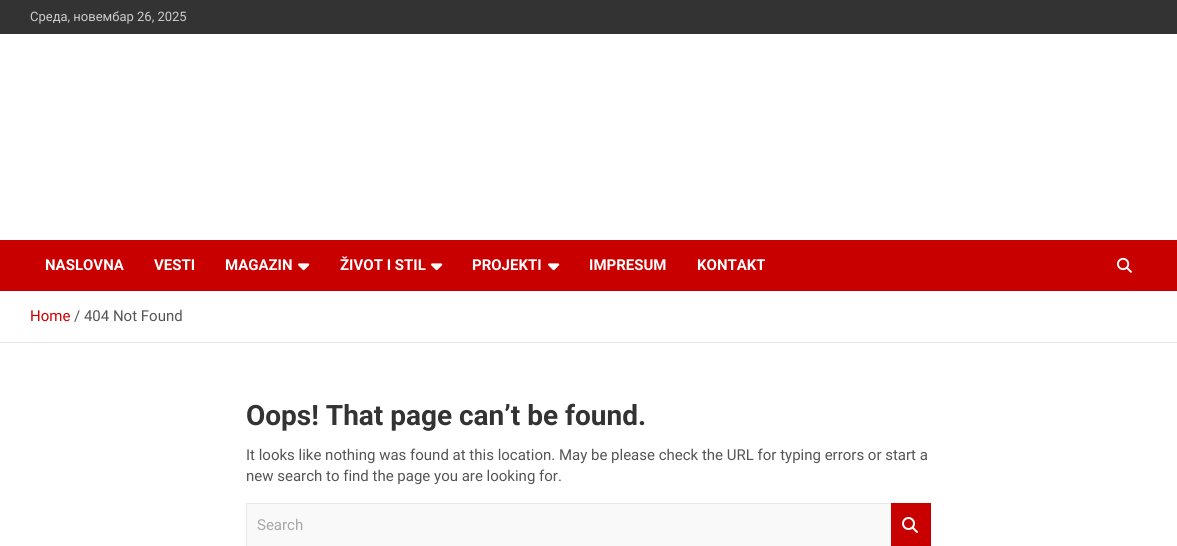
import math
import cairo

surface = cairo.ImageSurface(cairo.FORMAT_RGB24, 1177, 546)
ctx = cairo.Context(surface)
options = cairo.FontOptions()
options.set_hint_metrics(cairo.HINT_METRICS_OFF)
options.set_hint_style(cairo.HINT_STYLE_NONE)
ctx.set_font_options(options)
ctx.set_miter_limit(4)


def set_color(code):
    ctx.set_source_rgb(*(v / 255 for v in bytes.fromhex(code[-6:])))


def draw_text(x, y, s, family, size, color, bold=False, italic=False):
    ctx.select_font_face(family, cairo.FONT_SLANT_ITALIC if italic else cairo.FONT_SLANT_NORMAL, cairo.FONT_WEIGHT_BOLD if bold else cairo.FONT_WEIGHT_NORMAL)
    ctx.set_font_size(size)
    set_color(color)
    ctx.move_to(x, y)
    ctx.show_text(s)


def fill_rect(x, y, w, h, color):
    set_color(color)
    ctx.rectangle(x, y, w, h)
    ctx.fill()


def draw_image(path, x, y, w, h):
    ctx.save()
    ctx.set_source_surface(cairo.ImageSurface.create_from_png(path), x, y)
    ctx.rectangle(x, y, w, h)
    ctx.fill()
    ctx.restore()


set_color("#ffffff")
ctx.paint()
fill_rect(0, 0, 1177, 34, "#333333")
draw_text(30, 21, "Cреда, новембар 26, 2025", "Roboto", 13, "#cccccc")
fill_rect(0, 240, 1177, 51, "#c80000")
draw_text(45, 270, "NASLOVNA", "Roboto", 15, "#ffffff", bold=True)
draw_text(154, 270, "VESTI", "Roboto", 15, "#ffffff", bold=True)
draw_text(225, 270, "MAGAZIN", "Roboto", 15, "#ffffff", bold=True)
draw_image("assets/img1.png", 298, 263, 12, 8)
draw_text(340, 270, "ŽIVOT I STIL", "Roboto", 15, "#ffffff", bold=True)
draw_image("assets/img1.png", 431, 263, 12, 8)
draw_text(472, 270, "PROJEKTI", "Roboto", 15, "#ffffff", bold=True)
draw_image("assets/img1.png", 548, 263, 12, 8)
draw_text(589, 270, "IMPRESUM", "Roboto", 15, "#ffffff", bold=True)
draw_text(697, 270, "KONTAKT", "Roboto", 15, "#ffffff", bold=True)
draw_image("assets/img2.png", 1117, 257, 15, 16)
fill_rect(0, 342, 1177, 1, "#e6e6e6")
draw_text(30, 321, "Home", "Roboto", 15, "#c80000")
draw_text(74, 321, "/ 404 Not Found", "Roboto", 15, "#555555")
draw_text(246, 425, "Oops! That page can’t be found.", "Roboto", 28, "#333333", bold=True)
draw_text(246, 460, "It looks like nothing was found at this location. May be please check the URL for typing errors or start a", "Roboto", 15, "#555555")
draw_text(246, 481, "new search to find the page you are looking for.", "Roboto", 15, "#555555")
fill_rect(247, 504, 644, 42, "#f9f9f9")
set_color("#e8e8e8")
ctx.new_path()
ctx.move_to(246, 503)
ctx.line_to(891, 503)
ctx.line_to(891, 504)
ctx.line_to(247, 504)
ctx.close_path()
ctx.fill()
ctx.set_source_rgba(0, 0, 0, 0.09)
ctx.new_path()
ctx.move_to(246, 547)
ctx.line_to(246, 503)
ctx.line_to(247, 504)
ctx.line_to(247, 546)
ctx.close_path()
ctx.fill()
draw_text(257, 530, "Search", "Roboto", 15, "#a7a7a7")
fill_rect(891, 503, 40, 43, "#c80000")
draw_image("assets/img3.png", 902, 517, 16, 16)
surface.write_to_png("output.png")
